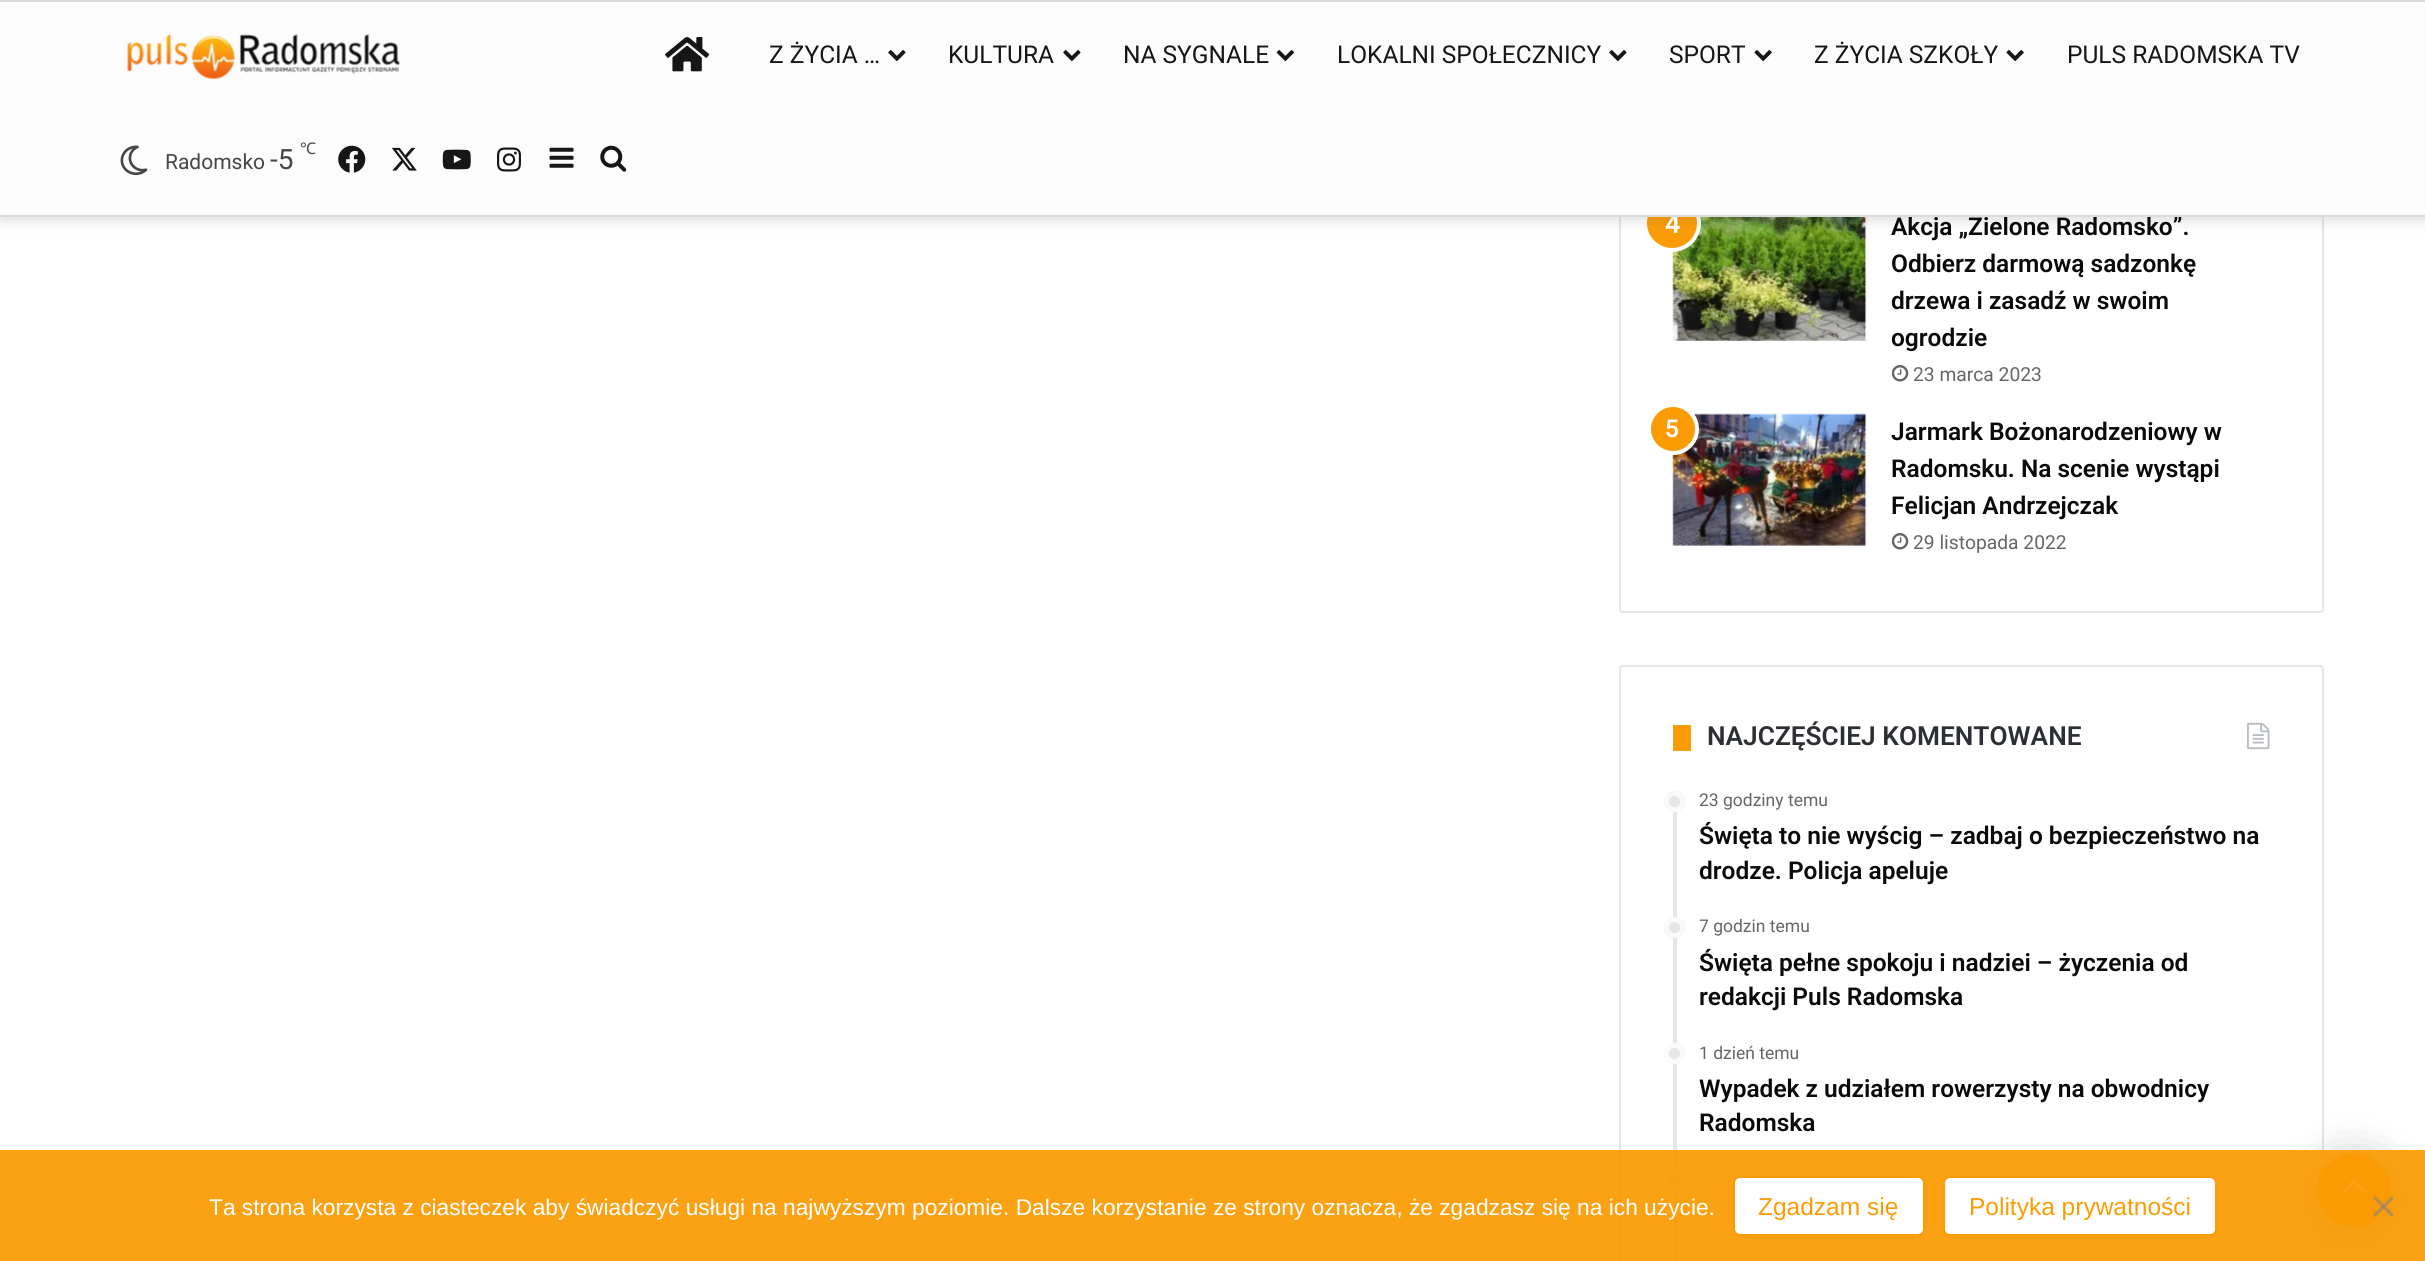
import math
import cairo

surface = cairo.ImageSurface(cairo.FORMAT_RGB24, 2425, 1261)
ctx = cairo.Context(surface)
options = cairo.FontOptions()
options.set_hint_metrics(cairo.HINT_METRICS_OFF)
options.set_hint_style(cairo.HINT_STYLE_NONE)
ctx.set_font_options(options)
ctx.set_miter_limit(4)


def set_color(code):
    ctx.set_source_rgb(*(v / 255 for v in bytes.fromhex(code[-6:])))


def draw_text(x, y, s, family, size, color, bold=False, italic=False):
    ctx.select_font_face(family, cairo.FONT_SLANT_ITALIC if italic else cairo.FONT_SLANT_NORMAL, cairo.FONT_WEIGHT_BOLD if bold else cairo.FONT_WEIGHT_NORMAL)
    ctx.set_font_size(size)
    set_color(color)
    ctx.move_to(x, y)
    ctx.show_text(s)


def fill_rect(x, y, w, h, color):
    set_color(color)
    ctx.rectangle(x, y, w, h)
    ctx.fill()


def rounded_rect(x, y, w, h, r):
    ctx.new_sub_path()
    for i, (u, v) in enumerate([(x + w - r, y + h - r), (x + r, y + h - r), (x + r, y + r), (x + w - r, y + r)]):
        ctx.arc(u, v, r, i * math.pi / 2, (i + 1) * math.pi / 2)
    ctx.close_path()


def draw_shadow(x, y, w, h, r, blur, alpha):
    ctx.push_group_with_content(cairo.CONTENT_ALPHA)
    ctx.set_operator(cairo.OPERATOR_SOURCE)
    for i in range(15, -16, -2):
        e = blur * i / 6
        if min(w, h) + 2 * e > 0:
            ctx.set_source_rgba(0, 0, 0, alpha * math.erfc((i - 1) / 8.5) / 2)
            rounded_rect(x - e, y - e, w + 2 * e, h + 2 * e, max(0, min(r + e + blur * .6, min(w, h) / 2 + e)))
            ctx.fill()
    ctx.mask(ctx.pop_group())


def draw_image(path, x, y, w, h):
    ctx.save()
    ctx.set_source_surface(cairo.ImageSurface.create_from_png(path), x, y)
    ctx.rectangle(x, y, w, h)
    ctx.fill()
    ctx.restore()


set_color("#ffffff")
ctx.paint()
rounded_rect(1620, -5, 703, 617, 3)
set_color("#e6e6e6")
ctx.stroke()
draw_image("assets/img14.png", 1672, 217, 195, 124)
set_color("#fb9c04")
ctx.arc(1672, 223, 27, 0, 2 * math.pi)
ctx.fill_preserve()
set_color("#ffffff")
ctx.set_line_width(4)
ctx.stroke()
set_color("#636363")
draw_shadow(0, 4, 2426, 217, 0, 7, 0.2)
draw_text(1665, 233, "4", "Roboto SemiBold", 27, "#ffffff")
fill_rect(0, 2, 2425, 213, "#fcfcfc")
fill_rect(0, 0, 2425, 2, "#dbdbdb")
draw_text(1891, 235, "Akcja „Zielone Radomsko”.", "Roboto SemiBold", 24.5, "#0a0a0a")
fill_rect(0, 215, 2425, 2, "#dbdbdb")
draw_image("assets/img1.png", 127, 34, 273, 46)
draw_image("assets/img2.png", 665, 37, 45, 35)
draw_text(769, 63, "Z ŻYCIA …", "Roboto", 24.5, "#161616")
draw_image("assets/img3.png", 888, 50, 18, 11)
draw_text(948, 63, "KULTURA", "Roboto", 24.5, "#161616")
draw_image("assets/img3.png", 1063, 50, 18, 11)
draw_text(1123, 63, "NA SYGNALE", "Roboto", 24.5, "#161616")
draw_image("assets/img4.png", 1276, 50, 18, 11)
draw_text(1337, 63, "LOKALNI SPOŁECZNICY", "Roboto", 24.5, "#161616")
draw_image("assets/img3.png", 1609, 50, 18, 11)
draw_text(1669, 63, "SPORT", "Roboto", 24.5, "#161616")
draw_image("assets/img5.png", 1754, 50, 18, 11)
draw_text(1814, 63, "Z ŻYCIA SZKOŁY", "Roboto", 24.5, "#161616")
draw_image("assets/img5.png", 2006, 50, 18, 11)
draw_text(2067, 63, "PULS RADOMSKA TV", "Roboto", 24.5, "#161616")
draw_image("assets/img6.png", 120, 145, 28, 31)
draw_text(165, 169, "Radomsko", "Roboto", 21, "#474646")
draw_text(270, 169, "-5", "Roboto", 28, "#474646")
draw_text(300, 154, "℃", "Noto Sans", 16, "#474646")
draw_image("assets/img7.png", 338, 145, 28, 28)
draw_image("assets/img8.png", 391, 147, 26, 24)
draw_image("assets/img9.png", 442, 149, 29, 21)
draw_image("assets/img10.png", 497, 147, 24, 25)
draw_image("assets/img11.png", 549, 147, 25, 21)
draw_image("assets/img12.png", 600, 145, 27, 27)
draw_text(1891, 272, "Odbierz darmową sadzonkę", "Roboto SemiBold", 24.5, "#0a0a0a")
draw_text(1891, 309, "drzewa i zasadź w swoim", "Roboto SemiBold", 24.5, "#0a0a0a")
draw_text(1891, 346, "ogrodzie", "Roboto SemiBold", 24.5, "#0a0a0a")
draw_image("assets/img13.png", 1892, 365, 17, 17)
draw_text(1913, 381, "23 marca 2023", "Roboto", 19.25, "#666666")
draw_image("assets/img15.png", 1672, 413, 195, 133)
set_color("#fb9c04")
ctx.arc(1673, 429, 24, 0, 2 * math.pi)
ctx.fill_preserve()
set_color("#ffffff")
ctx.stroke()
draw_text(1665, 437, "5", "Roboto SemiBold", 24.5, "#ffffff")
draw_text(1891, 440, "Jarmark Bożonarodzeniowy w", "Roboto SemiBold", 24.5, "#0a0a0a")
draw_text(1891, 477, "Radomsku. Na scenie wystąpi", "Roboto SemiBold", 24.5, "#0a0a0a")
draw_text(1891, 514, "Felicjan Andrzejczak", "Roboto SemiBold", 24.5, "#0a0a0a")
draw_image("assets/img13.png", 1892, 533, 17, 17)
draw_text(1913, 549, "29 listopada 2022", "Roboto", 19.25, "#666666")
rounded_rect(1620, 666, 703, 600, 3)
set_color("#e6e6e6")
ctx.set_line_width(2)
ctx.stroke()
fill_rect(1673, 725, 18, 26, "#fb9c04")
draw_text(1707, 745, "NAJCZĘŚCIEJ KOMENTOWANE", "Roboto SemiBold", 26.25, "#2c2f34")
draw_image("assets/img16.png", 2247, 722, 23, 28)
fill_rect(1673, 791, 4, 470, "#e6e6e6")
ctx.arc(1674.5, 801.5, 10.5, 0, 2 * math.pi)
ctx.fill()
ctx.arc(1674.5, 801.5, 8, 0, 2 * math.pi)
ctx.set_source_rgba(1, 1, 1, 0.8)
ctx.set_line_width(5)
ctx.stroke()
draw_text(1699, 806, "23 godziny temu", "Roboto", 17.5, "#666666")
draw_text(1699, 844, "Święta to nie wyścig – zadbaj o bezpieczeństwo na", "Roboto SemiBold", 24.5, "#0a0a0a")
draw_text(1699, 879, "drodze. Policja apeluje", "Roboto SemiBold", 24.5, "#0a0a0a")
set_color("#e6e6e6")
ctx.new_path()
ctx.arc(1674.5, 927.5, 10.5, 0, 2 * math.pi)
ctx.fill()
ctx.arc(1674.5, 927.5, 8, 0, 2 * math.pi)
ctx.set_source_rgba(1, 1, 1, 0.8)
ctx.stroke()
draw_text(1699, 932, "7 godzin temu", "Roboto", 17.5, "#666666")
draw_text(1699, 971, "Święta pełne spokoju i nadziei – życzenia od", "Roboto SemiBold", 24.5, "#0a0a0a")
draw_text(1699, 1005, "redakcji Puls Radomska", "Roboto SemiBold", 24.5, "#0a0a0a")
set_color("#e6e6e6")
ctx.new_path()
ctx.arc(1674.5, 1053.5, 10.5, 0, 2 * math.pi)
ctx.fill()
ctx.arc(1674.5, 1053.5, 8, 0, 2 * math.pi)
ctx.set_source_rgba(1, 1, 1, 0.8)
ctx.stroke()
draw_text(1699, 1059, "1 dzień temu", "Roboto", 17.5, "#666666")
draw_text(1699, 1097, "Wypadek z udziałem rowerzysty na obwodnicy", "Roboto SemiBold", 24.5, "#0a0a0a")
draw_text(1699, 1131, "Radomska", "Roboto SemiBold", 24.5, "#0a0a0a")
set_color("#e6e6e6")
ctx.new_path()
ctx.arc(1674.5, 1179.5, 10.5, 0, 2 * math.pi)
ctx.fill()
ctx.arc(1674.5, 1179.5, 8, 0, 2 * math.pi)
ctx.set_source_rgba(1, 1, 1, 0.8)
ctx.stroke()
set_color("#000000")
draw_shadow(2317, 1162, 74, 74, 37, 22, 0.3)
set_color("#fb9c04")
ctx.arc(2354, 1190, 37, 0, 2 * math.pi)
ctx.fill()
draw_image("assets/img17.png", 2343, 1179, 22, 13)
ctx.set_source_rgba(0.984, 0.612, 0.016, 0.93)
ctx.rectangle(0, 1150, 2425, 111)
ctx.fill()
draw_text(209, 1215, "Ta strona korzysta z ciasteczek aby świadczyć usługi na najwyższym poziomie. Dalsze korzystanie ze strony oznacza, że zgadzasz się na ich użycie.", "Liberation Sans", 22.75, "#ffffff")
rounded_rect(1734, 1177, 190, 58, 6)
ctx.fill_preserve()
set_color("#fb9c04")
ctx.set_line_width(2)
ctx.stroke()
draw_text(1758, 1215, "Zgadzam się", "Liberation Sans", 24.5, "#fb9c04")
set_color("#ffffff")
rounded_rect(1944, 1177, 272, 58, 6)
ctx.fill_preserve()
set_color("#fb9c04")
ctx.stroke()
draw_text(1969, 1215, "Polityka prywatności", "Liberation Sans", 24.5, "#fb9c04")
ctx.set_source_rgba(0.502, 0.502, 0.502, 0.5)
ctx.new_path()
ctx.move_to(2391.5, 1196)
ctx.line_to(2394, 1198.5)
ctx.line_to(2375.5, 1217)
ctx.line_to(2373, 1214.5)
ctx.close_path()
ctx.fill()
ctx.new_path()
ctx.move_to(2373, 1198.5)
ctx.line_to(2375.5, 1196)
ctx.line_to(2394, 1214.5)
ctx.line_to(2391.5, 1217)
ctx.close_path()
ctx.fill()
surface.write_to_png("output.png")
